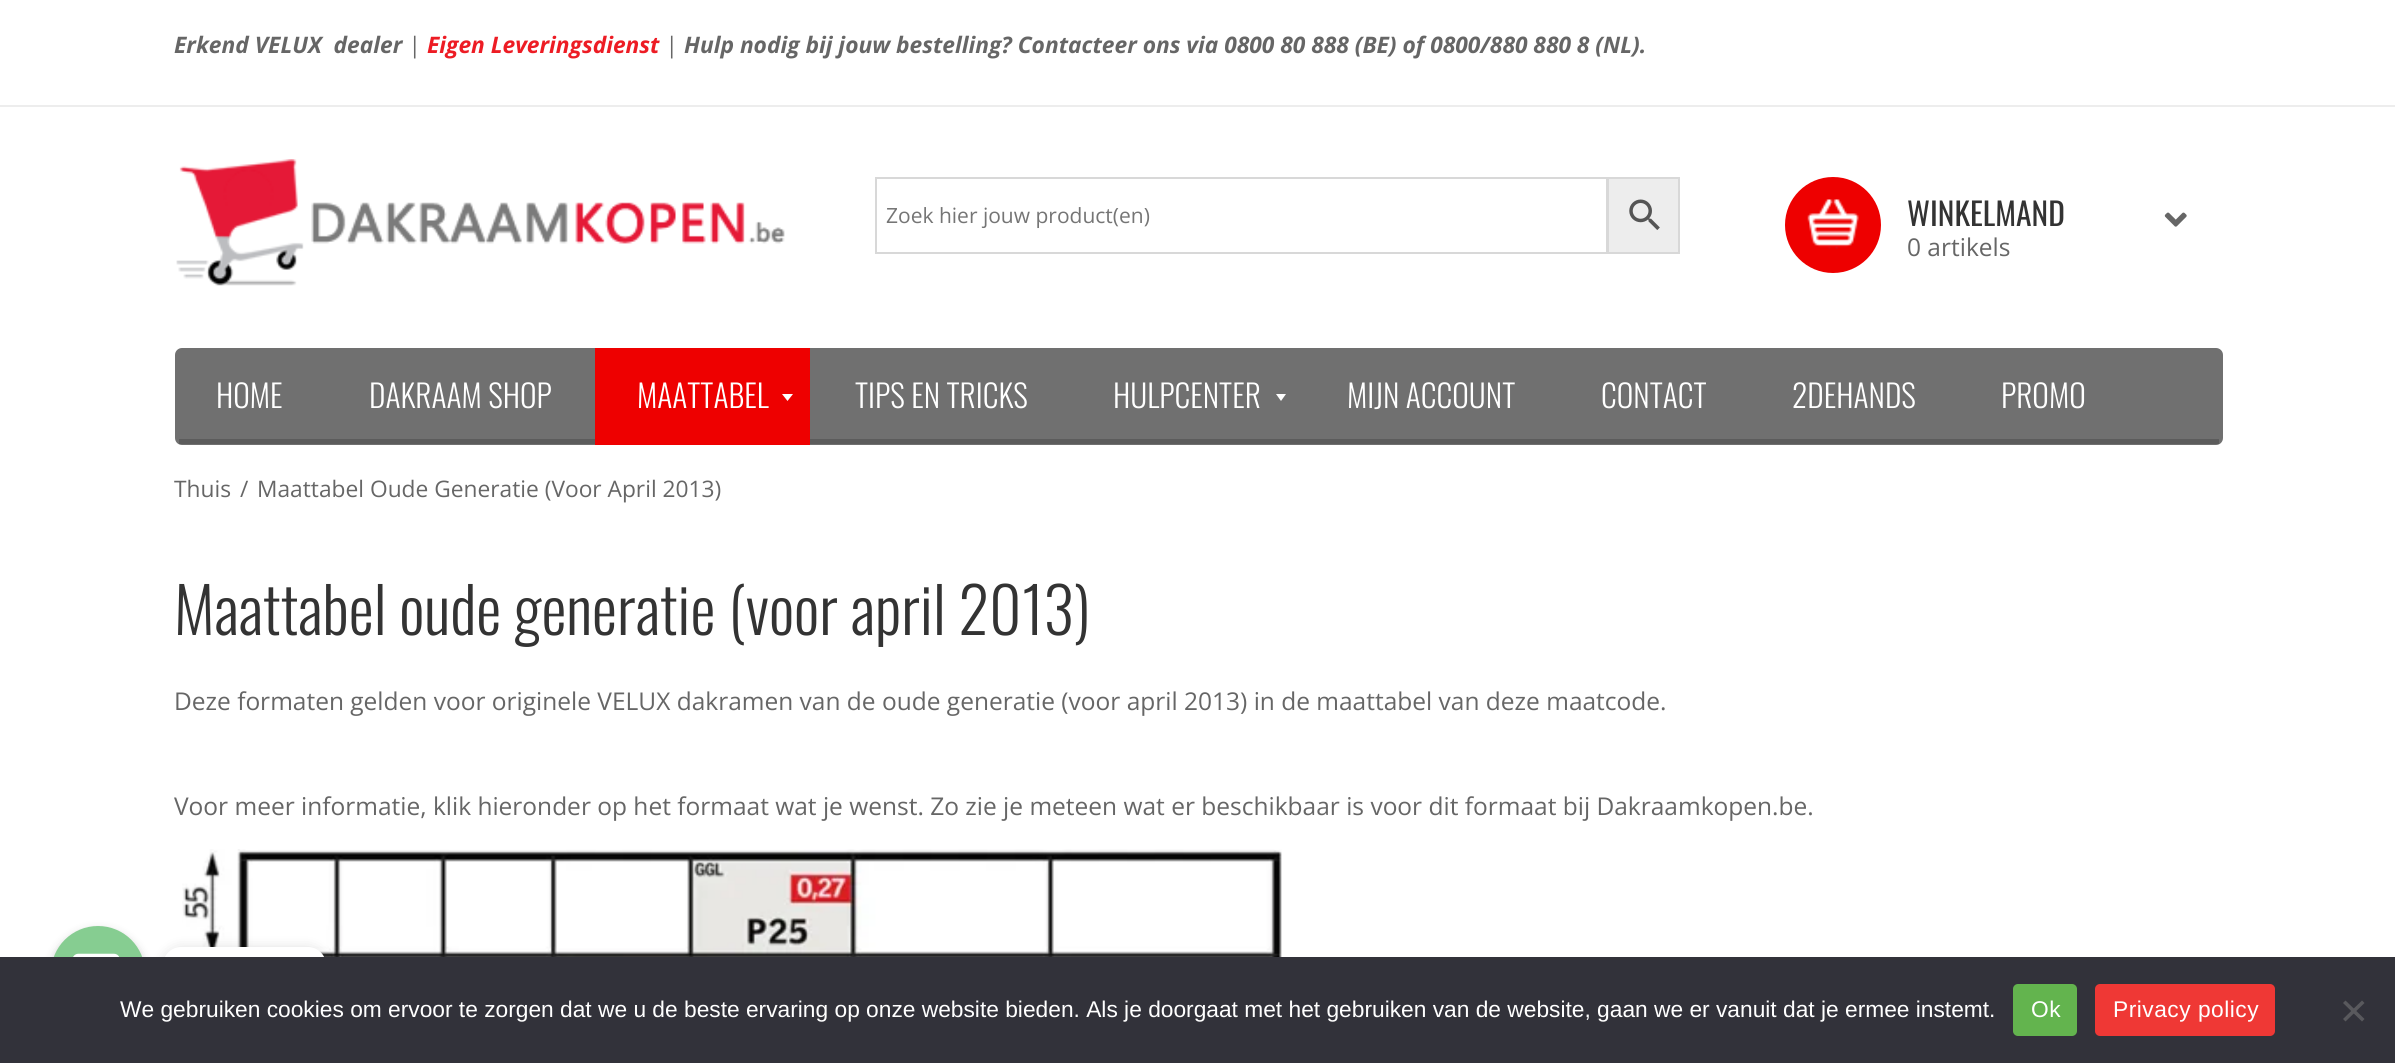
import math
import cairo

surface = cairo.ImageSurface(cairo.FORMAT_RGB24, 2395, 1063)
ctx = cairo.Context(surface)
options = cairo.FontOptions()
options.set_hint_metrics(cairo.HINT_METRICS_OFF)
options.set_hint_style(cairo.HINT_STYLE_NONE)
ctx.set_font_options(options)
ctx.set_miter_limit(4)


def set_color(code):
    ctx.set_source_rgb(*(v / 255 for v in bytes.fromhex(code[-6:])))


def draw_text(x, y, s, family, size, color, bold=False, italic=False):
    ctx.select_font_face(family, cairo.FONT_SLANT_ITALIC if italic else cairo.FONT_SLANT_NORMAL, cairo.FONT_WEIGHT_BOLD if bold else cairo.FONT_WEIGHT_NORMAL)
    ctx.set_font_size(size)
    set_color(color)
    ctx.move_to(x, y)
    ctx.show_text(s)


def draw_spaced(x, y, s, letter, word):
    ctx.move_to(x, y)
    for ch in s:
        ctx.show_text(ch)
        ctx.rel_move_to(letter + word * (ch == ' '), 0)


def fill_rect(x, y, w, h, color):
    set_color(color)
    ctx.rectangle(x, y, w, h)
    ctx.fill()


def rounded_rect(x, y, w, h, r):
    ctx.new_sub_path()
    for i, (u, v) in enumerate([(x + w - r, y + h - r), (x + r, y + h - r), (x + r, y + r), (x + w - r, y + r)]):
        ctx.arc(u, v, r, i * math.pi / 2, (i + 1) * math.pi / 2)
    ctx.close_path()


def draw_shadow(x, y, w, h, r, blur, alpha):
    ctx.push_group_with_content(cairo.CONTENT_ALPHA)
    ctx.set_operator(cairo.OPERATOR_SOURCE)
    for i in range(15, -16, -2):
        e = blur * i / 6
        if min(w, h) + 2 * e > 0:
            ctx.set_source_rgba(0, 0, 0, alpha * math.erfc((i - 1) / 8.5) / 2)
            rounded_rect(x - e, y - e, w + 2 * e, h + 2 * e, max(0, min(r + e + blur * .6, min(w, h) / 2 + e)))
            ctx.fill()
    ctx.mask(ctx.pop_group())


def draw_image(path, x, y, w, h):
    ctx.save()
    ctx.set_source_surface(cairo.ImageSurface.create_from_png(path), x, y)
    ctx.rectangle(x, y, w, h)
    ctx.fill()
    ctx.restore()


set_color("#ffffff")
ctx.paint()
fill_rect(0, 105, 2395, 2, "#ededed")
draw_text(174, 53, "Erkend VELUX  dealer", "Open Sans", 22.75, "#666666", bold=True, italic=True)
draw_text(408, 53, "|", "Open Sans", 22.75, "#666666", italic=True)
draw_text(427, 53, "Eigen Leveringsdienst", "Open Sans", 22.75, "#ed1c24", bold=True, italic=True)
draw_text(665, 53, "|", "Open Sans", 22.75, "#666666", italic=True)
draw_text(684, 53, "Hulp nodig bij jouw bestelling? Contacteer ons via 0800 80 888 (BE) of 0800/880 880 8 (NL).", "Open Sans", 22.75, "#666666", bold=True, italic=True)
draw_image("assets/img1.png", 176, 159, 609, 127)
set_color("#ededed")
ctx.rectangle(1608, 178, 71, 75)
ctx.fill_preserve()
set_color("#d8d8d8")
ctx.stroke()
ctx.rectangle(876, 178, 731, 75)
ctx.stroke()
draw_text(886, 223, "Zoek hier jouw product(en)", "Open Sans", 21, "#757575")
draw_image("assets/img2.png", 1629, 199, 31, 31)
set_color("#ee0000")
ctx.arc(1833, 225, 48, 0, 2 * math.pi)
ctx.fill()
draw_image("assets/img3.png", 1807, 199, 52, 50)
draw_text(1907, 226, "WINKELMAND", "Oswald", 31.5, "#333333")
draw_image("assets/img4.png", 2164, 212, 23, 15)
draw_text(1907, 256, "0 artikels", "Open Sans", 24.5, "#666666")
set_color("#707070")
rounded_rect(175, 348, 2048, 97, 7)
ctx.fill()
fill_rect(179, 439, 2040, 5, "#5c5c5c")
draw_text(216, 408, "HOME", "Oswald Light", 31.5, "#ffffff")
draw_text(369, 408, "DAKRAAM SHOP", "Oswald Light", 31.5, "#ffffff")
fill_rect(595, 348, 215, 97, "#ee0000")
draw_text(637, 408, "MAATTABEL", "Oswald Light", 31.5, "#ffffff")
ctx.new_path()
ctx.move_to(782, 394)
ctx.line_to(793, 394)
ctx.line_to(787.5, 401)
ctx.close_path()
ctx.fill()
draw_text(855, 408, "TIPS EN TRICKS", "Oswald Light", 31.5, "#ffffff")
draw_text(1113, 408, "HULPCENTER", "Oswald Light", 31.5, "#ffffff")
ctx.new_path()
ctx.move_to(1276, 394)
ctx.line_to(1286, 394)
ctx.line_to(1281, 401)
ctx.close_path()
ctx.fill()
draw_text(1347, 408, "MIJN ACCOUNT", "Oswald Light", 31.5, "#ffffff")
draw_text(1601, 408, "CONTACT", "Oswald Light", 31.5, "#ffffff")
draw_text(1792, 408, "2DEHANDS", "Oswald Light", 31.5, "#ffffff")
draw_text(2001, 408, "PROMO", "Oswald Light", 31.5, "#ffffff")
draw_text(174, 497, "Thuis", "Open Sans", 22.75, "#666666")
draw_text(240, 497, "/", "Open Sans", 22.75, "#666666")
draw_text(257, 497, "Maattabel Oude Generatie (Voor April 2013)", "Open Sans", 22.75, "#666666")
draw_text(174, 635, "Maattabel oude generatie (voor april 2013)", "Oswald Light", 63, "#333333")
draw_text(174, 710, "Deze formaten gelden voor originele VELUX dakramen van de oude generatie (voor april 2013) in de maattabel van deze maatcode.", "Open Sans", 24.5, "#666666")
draw_text(174, 815, "Voor meer informatie, klik hieronder op het formaat wat je wenst. Zo zie je meteen wat er beschikbaar is voor dit formaat bij Dakraamkopen.be.", "Open Sans", 24.5, "#666666")
draw_image("assets/img5.png", 182, 849, 1100, 108)
set_color("#000000")
draw_shadow(51, 931, 94, 95, 47, 5, 0.25)
draw_shadow(163, 949, 163, 54, 18, 7, 0.15)
draw_image("assets/img6.png", 53, 926, 90, 31)
set_color("#ffffff")
rounded_rect(163, 947, 163, 54, 18)
ctx.fill()
fill_rect(0, 957, 2395, 106, "#32323a")
draw_text(120, 1017, "We gebruiken cookies om ervoor te zorgen dat we u de beste ervaring op onze website bieden. Als je doorgaat met het gebruiken van de website, gaan we er vanuit dat je ermee instemt.", "Liberation Sans", 22.75, "#ffffff")
set_color("#63b44e")
rounded_rect(2013, 984, 64, 52, 5)
ctx.fill()
set_color("#ffffff")
draw_spaced(2031, 1017, "Ok", 0.5, 0)
set_color("#ef3835")
rounded_rect(2095, 984, 180, 52, 5)
ctx.fill()
set_color("#ffffff")
draw_spaced(2113, 1017, "Privacy policy", 0.5, 0)
set_color("#59595d")
ctx.new_path()
ctx.move_to(2362, 1000.5)
ctx.line_to(2364.5, 1003)
ctx.line_to(2345.5, 1021.5)
ctx.line_to(2343, 1019)
ctx.close_path()
ctx.fill()
ctx.new_path()
ctx.move_to(2343, 1003)
ctx.line_to(2345.5, 1000.5)
ctx.line_to(2364.5, 1019)
ctx.line_to(2362, 1021.5)
ctx.close_path()
ctx.fill()
surface.write_to_png("output.png")
